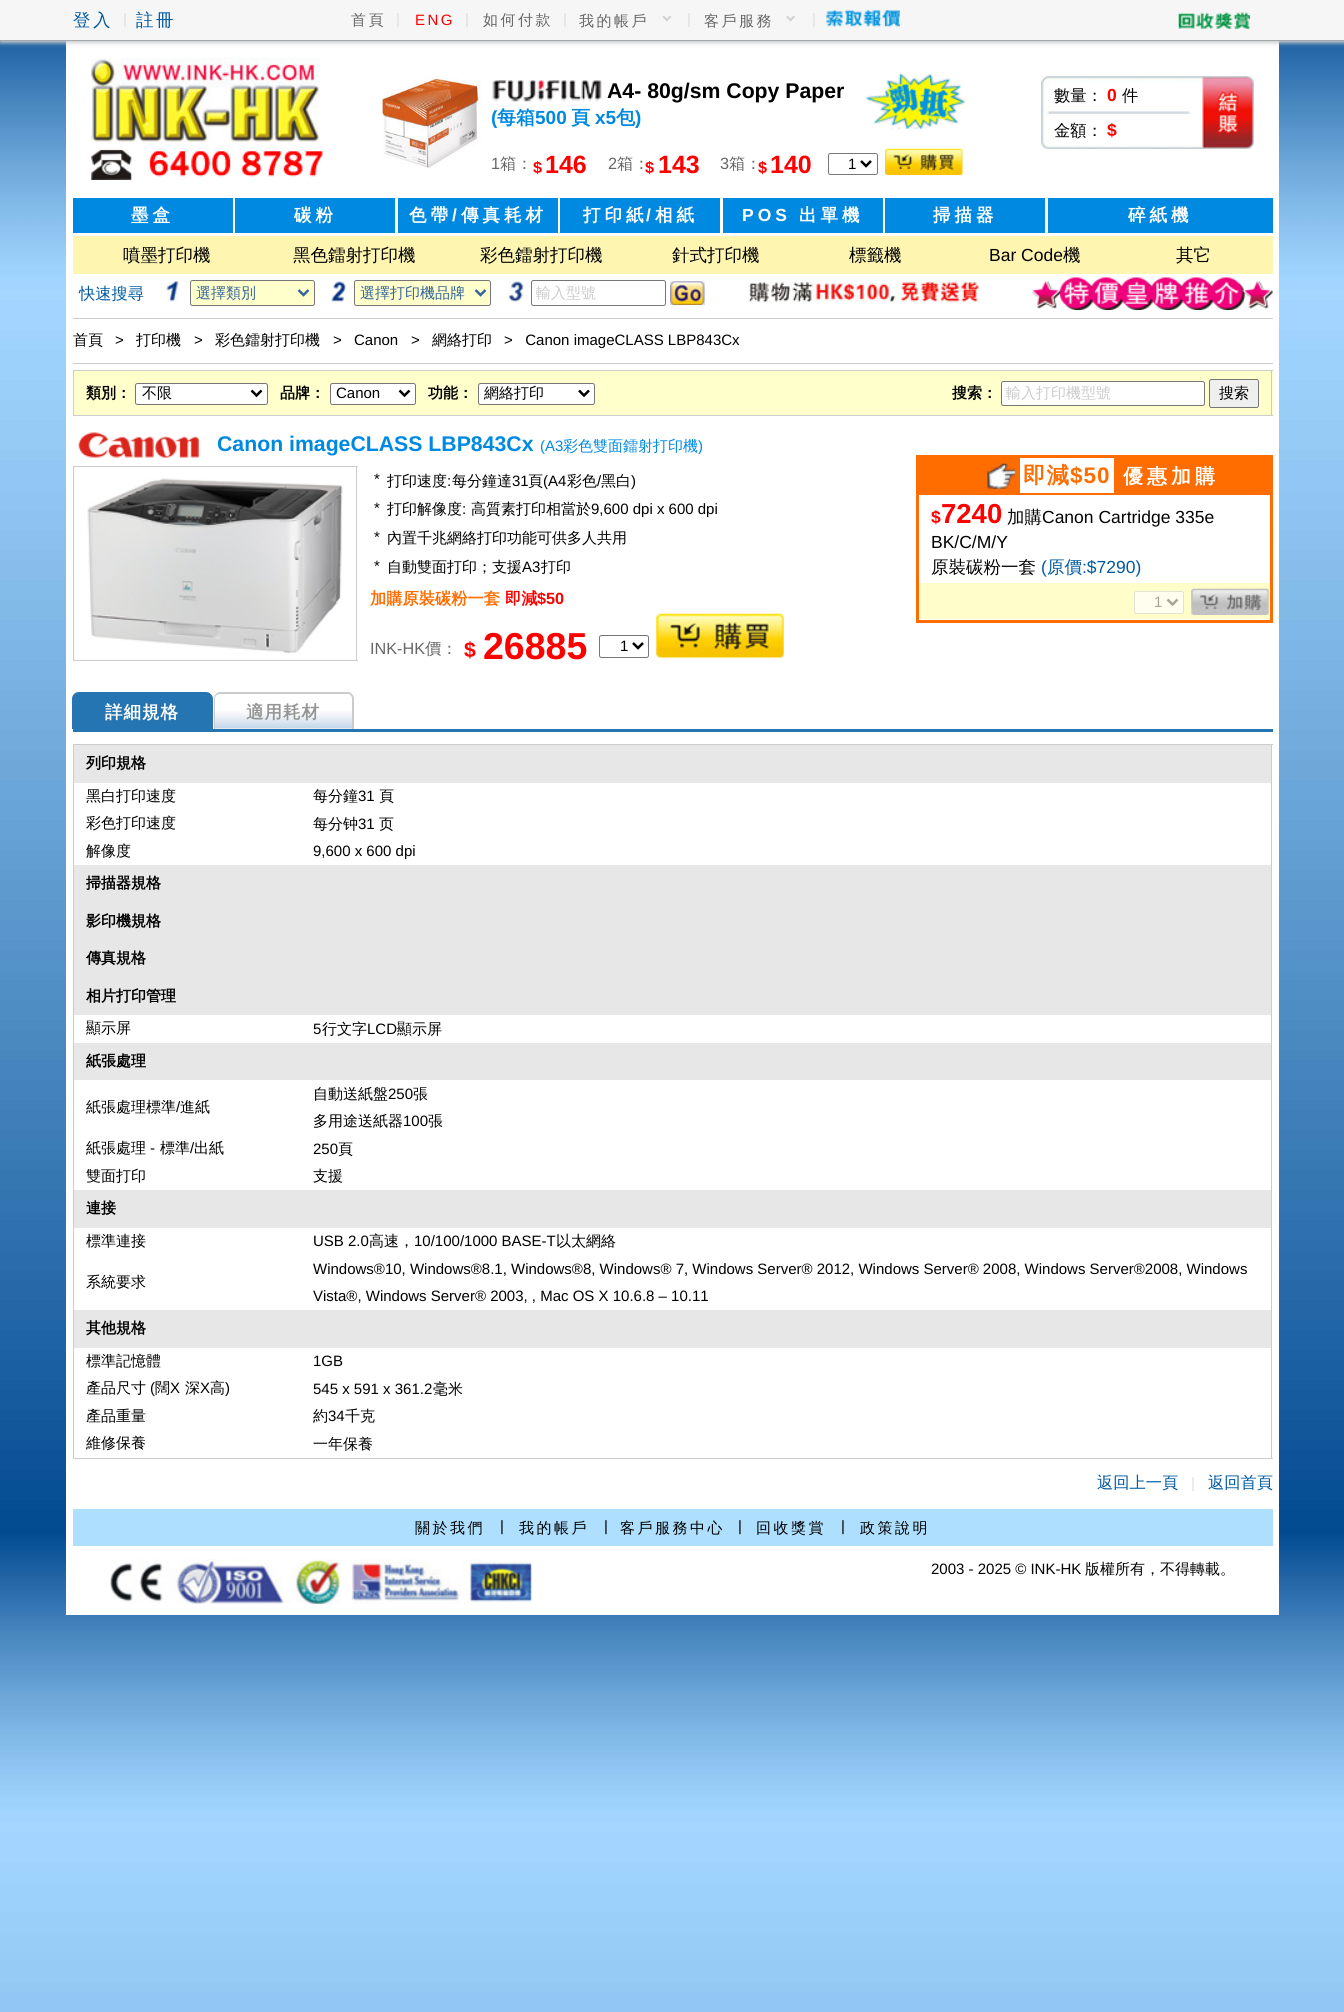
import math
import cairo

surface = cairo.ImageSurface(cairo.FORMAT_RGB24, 1344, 2012)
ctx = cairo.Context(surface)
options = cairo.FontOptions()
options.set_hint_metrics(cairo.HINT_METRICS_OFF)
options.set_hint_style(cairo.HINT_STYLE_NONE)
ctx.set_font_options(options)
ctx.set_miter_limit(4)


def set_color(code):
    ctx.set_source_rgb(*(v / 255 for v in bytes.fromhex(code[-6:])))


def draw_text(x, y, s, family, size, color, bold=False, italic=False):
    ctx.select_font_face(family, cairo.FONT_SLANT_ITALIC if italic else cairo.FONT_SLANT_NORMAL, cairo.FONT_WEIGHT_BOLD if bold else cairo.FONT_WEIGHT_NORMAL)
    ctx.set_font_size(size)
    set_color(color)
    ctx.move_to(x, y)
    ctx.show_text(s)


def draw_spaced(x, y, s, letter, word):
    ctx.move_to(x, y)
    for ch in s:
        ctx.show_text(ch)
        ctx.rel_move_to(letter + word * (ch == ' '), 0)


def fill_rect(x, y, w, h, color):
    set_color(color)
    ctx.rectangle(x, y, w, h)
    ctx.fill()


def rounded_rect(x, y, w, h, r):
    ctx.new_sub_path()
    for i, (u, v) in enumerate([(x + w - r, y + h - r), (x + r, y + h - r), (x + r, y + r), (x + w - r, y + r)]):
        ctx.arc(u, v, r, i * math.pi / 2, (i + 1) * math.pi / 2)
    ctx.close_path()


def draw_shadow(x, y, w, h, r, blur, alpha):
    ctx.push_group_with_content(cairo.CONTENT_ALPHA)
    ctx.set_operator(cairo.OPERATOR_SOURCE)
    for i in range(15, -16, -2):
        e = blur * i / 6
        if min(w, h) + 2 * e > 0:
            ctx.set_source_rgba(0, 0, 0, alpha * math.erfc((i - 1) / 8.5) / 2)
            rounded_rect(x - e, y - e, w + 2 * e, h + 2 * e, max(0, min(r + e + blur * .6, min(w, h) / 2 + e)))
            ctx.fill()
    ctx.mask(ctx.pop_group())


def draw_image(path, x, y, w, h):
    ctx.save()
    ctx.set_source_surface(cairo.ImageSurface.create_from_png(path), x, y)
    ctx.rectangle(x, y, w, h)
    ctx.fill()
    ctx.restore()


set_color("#ffffff")
ctx.paint()
draw_image("assets/img1.png", 0, 41, 1344, 1971)
fill_rect(66, 41, 1213, 1574, "#ffffff")
set_color("#cccccc")
draw_shadow(0, 1, 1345, 42, 0, 2, 1)
fill_rect(0, 0, 1344, 40, "#f6f6f6")
fill_rect(0, 40, 1344, 1, "#a2a8ac")
ctx.select_font_face("WenQuanYi Zen Hei Medium")
ctx.set_font_size(17.5)
set_color("#005aa0")
draw_spaced(73, 26, "登入", 2.5, 0)
draw_text(123, 24, "|", "Liberation Sans", 15, "#dddddd")
ctx.select_font_face("WenQuanYi Zen Hei Medium")
ctx.set_font_size(17.5)
set_color("#005aa0")
draw_spaced(136, 26, "註冊", 2.5, 0)
ctx.set_font_size(15)
set_color("#666666")
draw_spaced(351, 25, "首頁", 2.5, 0)
draw_text(396, 24, "|", "Liberation Sans", 15, "#dddddd")
set_color("#ff0000")
draw_spaced(415, 25, "ENG", 2.5, 0)
draw_text(465, 24, "|", "Liberation Sans", 15, "#dddddd")
ctx.select_font_face("WenQuanYi Zen Hei Medium")
set_color("#666666")
draw_spaced(483, 25, "如何付款", 2.5, 0)
draw_text(563, 24, "|", "Liberation Sans", 15, "#dddddd")
ctx.select_font_face("WenQuanYi Zen Hei Medium")
set_color("#666666")
draw_spaced(579, 26, "我的帳戶", 2.5, 0)
draw_image("assets/img2.png", 662, 16, 10, 6)
draw_text(687, 24, "|", "Liberation Sans", 15, "#dddddd")
ctx.select_font_face("WenQuanYi Zen Hei Medium")
set_color("#666666")
draw_spaced(704, 26, "客戶服務", 2.5, 0)
draw_image("assets/img3.png", 786, 16, 9, 6)
draw_text(812, 24, "|", "Liberation Sans", 15, "#dddddd")
draw_image("assets/img4.png", 826, 10, 74, 17)
draw_image("assets/img5.png", 1178, 12, 72, 17)
draw_image("assets/img6.png", 91, 57, 229, 86)
draw_image("assets/img7.png", 91, 149, 41, 31)
draw_image("assets/img8.png", 148, 150, 175, 27)
draw_image("assets/img9.png", 381, 76, 100, 93)
draw_image("assets/img10.png", 492, 80, 110, 22)
draw_text(607, 98, "A4- 80g/sm Copy Paper", "Liberation Sans", 21.25, "#000000", bold=True)
draw_text(491, 124, "(", "Liberation Sans", 19, "#0089e1", bold=True)
draw_text(497, 124, "每箱", "WenQuanYi Zen Hei", 19, "#0089e1", bold=True)
draw_text(535, 124, "500", "Liberation Sans", 19, "#0089e1", bold=True)
draw_text(571, 124, "頁", "WenQuanYi Zen Hei", 19, "#0089e1", bold=True)
draw_text(595, 124, "x5", "Liberation Sans", 19, "#0089e1", bold=True)
draw_text(616, 124, "包", "WenQuanYi Zen Hei", 19, "#0089e1", bold=True)
draw_text(635, 124, ")", "Liberation Sans", 19, "#0089e1", bold=True)
draw_text(491, 169, "1", "Liberation Sans", 16.25, "#666666")
draw_text(500, 169, "箱：", "WenQuanYi Zen Hei Medium", 16.25, "#666666")
draw_text(533, 173, "$", "Liberation Sans", 16.25, "#ff0000", bold=True)
draw_text(545, 173, "146", "Liberation Sans", 25, "#ff0000", bold=True)
draw_text(608, 169, "2", "Liberation Sans", 16.25, "#666666")
draw_text(617, 169, "箱：", "WenQuanYi Zen Hei Medium", 16.25, "#666666")
draw_text(645, 173, "$", "Liberation Sans", 16.25, "#ff0000", bold=True)
draw_text(658, 173, "143", "Liberation Sans", 25, "#ff0000", bold=True)
draw_text(720, 169, "3", "Liberation Sans", 16.25, "#666666")
draw_text(729, 169, "箱：", "WenQuanYi Zen Hei Medium", 16.25, "#666666")
draw_text(758, 173, "$", "Liberation Sans", 16.25, "#ff0000", bold=True)
draw_text(770, 173, "140", "Liberation Sans", 25, "#ff0000", bold=True)
draw_image("assets/img11.png", 866, 73, 100, 56)
rounded_rect(828.5, 153.5, 49, 21, 2)
set_color("#767676")
ctx.set_line_width(1)
ctx.stroke()
ctx.new_path()
ctx.move_to(861, 161)
ctx.line_to(866, 166)
ctx.line_to(871, 161)
set_color("#000000")
ctx.set_line_width(2.5)
ctx.stroke()
draw_text(848, 169, "1", "Liberation Sans", 15, "#000000")
draw_image("assets/img12.png", 885, 148, 78, 27)
draw_image("assets/img13.png", 1041, 75, 213, 74)
draw_text(1054, 101, "數量：", "WenQuanYi Zen Hei Medium", 16.25, "#000000")
draw_text(1107, 101, "0", "Liberation Sans", 17.5, "#ff0000", bold=True)
draw_text(1122, 101, "件", "WenQuanYi Zen Hei Medium", 16.25, "#000000")
draw_text(1054, 136, "金額：", "WenQuanYi Zen Hei Medium", 16.25, "#000000")
draw_text(1107, 136, "$", "Liberation Sans", 17.5, "#ff0000", bold=True)
fill_rect(73, 198, 1200, 35, "#0089e1")
fill_rect(233, 198, 2, 35, "#ffffff")
ctx.select_font_face("WenQuanYi Zen Hei", cairo.FONT_SLANT_NORMAL, cairo.FONT_WEIGHT_BOLD)
draw_spaced(131, 221, "墨盒", 4, 0)
fill_rect(395, 198, 3, 35, "#ffffff")
draw_spaced(294, 221, "碳粉", 4, 0)
fill_rect(558, 198, 2, 35, "#ffffff")
draw_spaced(409, 221, "色帶", 4, 0)
ctx.select_font_face("Liberation Sans", cairo.FONT_SLANT_NORMAL, cairo.FONT_WEIGHT_BOLD)
draw_spaced(452, 221, "/", 4, 0)
ctx.select_font_face("WenQuanYi Zen Hei", cairo.FONT_SLANT_NORMAL, cairo.FONT_WEIGHT_BOLD)
draw_spaced(461, 221, "傳真耗材", 4, 0)
fill_rect(720, 198, 3, 35, "#ffffff")
draw_spaced(583, 221, "打印紙", 4, 0)
ctx.select_font_face("Liberation Sans", cairo.FONT_SLANT_NORMAL, cairo.FONT_WEIGHT_BOLD)
draw_spaced(646, 221, "/", 4, 0)
ctx.select_font_face("WenQuanYi Zen Hei", cairo.FONT_SLANT_NORMAL, cairo.FONT_WEIGHT_BOLD)
draw_spaced(655, 221, "相紙", 4, 0)
fill_rect(883, 198, 2, 35, "#ffffff")
ctx.select_font_face("Liberation Sans", cairo.FONT_SLANT_NORMAL, cairo.FONT_WEIGHT_BOLD)
draw_spaced(742, 221, "POS", 4, 0)
ctx.select_font_face("WenQuanYi Zen Hei", cairo.FONT_SLANT_NORMAL, cairo.FONT_WEIGHT_BOLD)
draw_spaced(799, 221, "出單機", 4, 0)
fill_rect(1045, 198, 3, 35, "#ffffff")
draw_spaced(933, 221, "掃描器", 4, 0)
draw_spaced(1128, 221, "碎紙機", 4, 0)
fill_rect(73, 236, 1200, 38, "#fef5b0")
draw_text(123, 261, "噴墨打印機", "WenQuanYi Zen Hei Medium", 17.5, "#000000")
draw_text(293, 261, "黑色鐳射打印機", "WenQuanYi Zen Hei Medium", 17.5, "#000000")
draw_text(480, 261, "彩色鐳射打印機", "WenQuanYi Zen Hei Medium", 17.5, "#000000")
draw_text(672, 261, "針式打印機", "WenQuanYi Zen Hei Medium", 17.5, "#000000")
draw_text(849, 261, "標籤機", "WenQuanYi Zen Hei Medium", 17.5, "#000000")
draw_text(989, 261, "Bar Code", "Liberation Sans", 17.5, "#000000")
draw_text(1063, 261, "機", "WenQuanYi Zen Hei Medium", 17.5, "#000000")
draw_text(1176, 261, "其它", "WenQuanYi Zen Hei Medium", 17.5, "#000000")
draw_text(79, 299, "快速搜尋", "WenQuanYi Zen Hei Medium", 16.25, "#005aa0")
draw_image("assets/img14.png", 166, 281, 13, 21)
set_color("#ffffcc")
rounded_rect(190.5, 280.5, 124, 25, 2)
ctx.fill_preserve()
set_color("#767676")
ctx.set_line_width(1)
ctx.stroke()
ctx.new_path()
ctx.move_to(298.5, 290)
ctx.line_to(303.5, 295)
ctx.line_to(308.5, 290)
set_color("#336699")
ctx.set_line_width(2.5)
ctx.stroke()
draw_text(196, 298, "選擇類別", "WenQuanYi Zen Hei Medium", 15, "#336699")
draw_image("assets/img15.png", 331, 281, 16, 21)
set_color("#ffffcc")
rounded_rect(354.5, 280.5, 136, 25, 2)
ctx.fill_preserve()
set_color("#767676")
ctx.set_line_width(1)
ctx.stroke()
ctx.new_path()
ctx.move_to(475.5, 290)
ctx.line_to(480.5, 295)
ctx.line_to(485.5, 290)
set_color("#336699")
ctx.set_line_width(2.5)
ctx.stroke()
draw_text(360, 298, "選擇打印機品牌", "WenQuanYi Zen Hei Medium", 15, "#336699")
draw_image("assets/img16.png", 508, 281, 16, 21)
rounded_rect(531.5, 280.5, 134, 25, 2)
set_color("#767676")
ctx.set_line_width(1)
ctx.stroke()
draw_text(536, 298, "輸入型號", "WenQuanYi Zen Hei Medium", 15, "#cccccc")
draw_image("assets/img17.png", 670, 281, 35, 24)
draw_image("assets/img18.png", 748, 281, 232, 22)
draw_image("assets/img19.png", 1032, 277, 241, 33)
fill_rect(73, 318, 1200, 1, "#cccccc")
fill_rect(73, 363, 1200, 1, "#cccccc")
draw_text(73, 345, "首頁", "WenQuanYi Zen Hei Medium", 15, "#000000")
draw_text(115, 345, ">", "Liberation Sans", 15, "#000000")
draw_text(136, 345, "打印機", "WenQuanYi Zen Hei Medium", 15, "#000000")
draw_text(194, 345, ">", "Liberation Sans", 15, "#000000")
draw_text(215, 345, "彩色鐳射打印機", "WenQuanYi Zen Hei Medium", 15, "#000000")
draw_text(333, 345, ">", "Liberation Sans", 15, "#000000")
draw_text(354, 345, "Canon", "Liberation Sans", 15, "#000000")
draw_text(411, 345, ">", "Liberation Sans", 15, "#000000")
draw_text(432, 345, "網絡打印", "WenQuanYi Zen Hei Medium", 15, "#000000")
draw_text(504, 345, ">   Canon imageCLASS LBP843Cx", "Liberation Sans", 15, "#000000")
fill_rect(74, 371, 1199, 44, "#ffffcc")
fill_rect(73, 370, 1200, 1, "#cccccc")
fill_rect(1271, 370, 1, 46, "#cccccc")
fill_rect(73, 415, 1200, 1, "#cccccc")
fill_rect(73, 370, 1, 46, "#cccccc")
draw_text(86, 398, "類別：", "WenQuanYi Zen Hei", 15, "#000000", bold=True)
set_color("#ffffff")
rounded_rect(135.5, 383.5, 132, 21, 2)
ctx.fill_preserve()
set_color("#767676")
ctx.stroke()
ctx.new_path()
ctx.move_to(251.5, 390.5)
ctx.line_to(256.5, 395.5)
ctx.line_to(261.5, 390.5)
set_color("#000000")
ctx.set_line_width(2.5)
ctx.stroke()
draw_text(142, 398, "不限", "WenQuanYi Zen Hei Medium", 15, "#000000")
draw_text(280, 398, "品牌：", "WenQuanYi Zen Hei", 15, "#000000", bold=True)
set_color("#ffffff")
rounded_rect(330.5, 383.5, 85, 21, 2)
ctx.fill_preserve()
set_color("#767676")
ctx.set_line_width(1)
ctx.stroke()
ctx.new_path()
ctx.move_to(399.5, 390.5)
ctx.line_to(404.5, 395.5)
ctx.line_to(409.5, 390.5)
set_color("#000000")
ctx.set_line_width(2.5)
ctx.stroke()
draw_text(336, 398, "Canon", "Liberation Sans", 15, "#000000")
draw_text(428, 398, "功能：", "WenQuanYi Zen Hei", 15, "#000000", bold=True)
set_color("#ffffff")
rounded_rect(478.5, 383.5, 116, 21, 2)
ctx.fill_preserve()
set_color("#767676")
ctx.set_line_width(1)
ctx.stroke()
ctx.new_path()
ctx.move_to(579, 390.5)
ctx.line_to(584, 395.5)
ctx.line_to(589, 390.5)
set_color("#000000")
ctx.set_line_width(2.5)
ctx.stroke()
draw_text(484, 398, "網絡打印", "WenQuanYi Zen Hei Medium", 15, "#000000")
draw_text(952, 398, "搜索：", "WenQuanYi Zen Hei", 15, "#000000", bold=True)
set_color("#ffffff")
rounded_rect(1001.5, 381.5, 203, 24, 2)
ctx.fill_preserve()
set_color("#767676")
ctx.set_line_width(1)
ctx.stroke()
draw_text(1006, 398, "輸入打印機型號", "WenQuanYi Zen Hei Medium", 15, "#cccccc")
set_color("#efefef")
rounded_rect(1209.5, 379.5, 49, 28, 2)
ctx.fill_preserve()
set_color("#767676")
ctx.stroke()
draw_text(1219, 398, "搜索", "WenQuanYi Zen Hei Medium", 15, "#000000")
draw_image("assets/img20.png", 78, 432, 121, 26)
draw_text(217, 451, "Canon imageCLASS LBP843Cx", "Liberation Sans", 21.25, "#0089e1", bold=True)
draw_text(540, 451, "(A3", "Liberation Sans", 15, "#0089e1")
draw_text(563, 451, "彩色雙面鐳射打印機", "WenQuanYi Zen Hei Medium", 15, "#0089e1")
draw_text(698, 451, ")", "Liberation Sans", 15, "#0089e1")
fill_rect(73, 466, 285, 1, "#cccccc")
fill_rect(356, 466, 1, 195, "#cccccc")
fill_rect(73, 660, 285, 1, "#cccccc")
fill_rect(73, 466, 1, 195, "#cccccc")
draw_image("assets/img21.png", 87, 478, 256, 176)
draw_text(374, 484, "*", "Liberation Sans", 15, "#000000")
draw_text(387, 486, "打印速度", "WenQuanYi Zen Hei Medium", 15, "#000000")
draw_text(447, 486, ":", "Liberation Sans", 15, "#000000")
draw_text(452, 486, "每分鐘達", "WenQuanYi Zen Hei Medium", 15, "#000000")
draw_text(512, 486, "31", "Liberation Sans", 15, "#000000")
draw_text(528, 486, "頁", "WenQuanYi Zen Hei Medium", 15, "#000000")
draw_text(543, 486, "(A4", "Liberation Sans", 15, "#000000")
draw_text(567, 486, "彩色", "WenQuanYi Zen Hei Medium", 15, "#000000")
draw_text(597, 486, "/", "Liberation Sans", 15, "#000000")
draw_text(601, 486, "黑白", "WenQuanYi Zen Hei Medium", 15, "#000000")
draw_text(631, 486, ")", "Liberation Sans", 15, "#000000")
draw_text(374, 513, "*", "Liberation Sans", 15, "#000000")
draw_text(387, 514, "打印解像度", "WenQuanYi Zen Hei Medium", 15, "#000000")
draw_text(462, 514, ":", "Liberation Sans", 15, "#000000")
draw_text(471, 514, "高質素打印相當於", "WenQuanYi Zen Hei Medium", 15, "#000000")
draw_text(591, 514, "9,600 dpi x 600 dpi", "Liberation Sans", 15, "#000000")
draw_text(374, 542, "*", "Liberation Sans", 15, "#000000")
draw_text(387, 543, "內置千兆網絡打印功能可供多人共用", "WenQuanYi Zen Hei Medium", 15, "#000000")
draw_text(374, 571, "*", "Liberation Sans", 15, "#000000")
draw_text(387, 572, "自動雙面打印；支援", "WenQuanYi Zen Hei Medium", 15, "#000000")
draw_text(522, 572, "A3", "Liberation Sans", 15, "#000000")
draw_text(541, 572, "打印", "WenQuanYi Zen Hei Medium", 15, "#000000")
draw_text(370, 604, "加購原裝碳粉一套", "WenQuanYi Zen Hei", 16.25, "#ff6d00", bold=True)
draw_text(505, 604, "即減", "WenQuanYi Zen Hei", 16.25, "#ff0000", bold=True)
draw_text(537, 604, "$50", "Liberation Sans", 16.25, "#ff0000", bold=True)
draw_text(370, 654, "INK-HK", "Liberation Sans", 16.25, "#666666")
draw_text(425, 654, "價：", "WenQuanYi Zen Hei Medium", 16.25, "#666666")
draw_text(464, 657, "$", "Liberation Sans", 21.25, "#ff0000", bold=True)
draw_text(483, 659, "26885", "Liberation Sans", 37.5, "#ff0000", bold=True)
rounded_rect(599.5, 635.5, 49, 22, 2)
set_color("#767676")
ctx.stroke()
ctx.new_path()
ctx.move_to(633, 643)
ctx.line_to(638, 648)
ctx.line_to(643, 643)
set_color("#000000")
ctx.set_line_width(2.5)
ctx.stroke()
draw_text(620, 651, "1", "Liberation Sans", 15, "#000000")
draw_image("assets/img22.png", 656, 613, 128, 45)
ctx.rectangle(917.5, 456.5, 354, 165)
set_color("#ff6d00")
ctx.set_line_width(3)
ctx.stroke()
fill_rect(919, 458, 351, 37, "#ff6d00")
draw_image("assets/img23.png", 987, 460, 29, 33)
fill_rect(1020, 458, 94, 35, "#ffffff")
ctx.select_font_face("WenQuanYi Zen Hei", cairo.FONT_SLANT_NORMAL, cairo.FONT_WEIGHT_BOLD)
ctx.set_font_size(22.5)
set_color("#ff6d00")
draw_spaced(1023, 483, "即減", 1, 0)
ctx.select_font_face("Liberation Sans", cairo.FONT_SLANT_NORMAL, cairo.FONT_WEIGHT_BOLD)
draw_spaced(1070, 483, "$50", 1, 0)
ctx.select_font_face("WenQuanYi Zen Hei", cairo.FONT_SLANT_NORMAL, cairo.FONT_WEIGHT_BOLD)
ctx.set_font_size(20)
set_color("#ffffff")
draw_spaced(1123, 483, "優惠加購", 4, 0)
draw_text(931, 523, "$", "Liberation Sans", 17.5, "#ff0000", bold=True)
draw_text(941, 523, "7240", "Liberation Sans", 27.5, "#ff0000", bold=True)
draw_text(1007, 523, "加購", "WenQuanYi Zen Hei Medium", 17.5, "#000000")
draw_text(1042, 523, "Canon Cartridge 335e", "Liberation Sans", 17.5, "#000000")
draw_text(931, 548, "BK/C/M/Y", "Liberation Sans", 17.5, "#000000")
draw_text(931, 573, "原裝碳粉一套", "WenQuanYi Zen Hei Medium", 17.5, "#000000")
draw_text(1041, 573, "(", "Liberation Sans", 17.5, "#005aa0")
draw_text(1047, 573, "原價", "WenQuanYi Zen Hei Medium", 17.5, "#005aa0")
draw_text(1082, 573, ":$7290)", "Liberation Sans", 17.5, "#005aa0")
fill_rect(919, 583, 351, 36, "#fffdca")
set_color("#fffeef")
rounded_rect(1134, 591, 50, 23, 2.5)
ctx.fill()
rounded_rect(1134.5, 591.5, 49, 22, 2)
ctx.set_source_rgba(0.624, 0.624, 0.561, 0.3)
ctx.set_line_width(1)
ctx.stroke()
ctx.new_path()
ctx.move_to(1167.5, 599.5)
ctx.line_to(1172.5, 604.5)
ctx.line_to(1177.5, 599.5)
set_color("#a6a696")
ctx.set_line_width(2.5)
ctx.stroke()
draw_text(1154, 607, "1", "Liberation Sans", 15, "#a6a696")
draw_image("assets/img24.png", 1191, 588, 78, 27)
set_color("#2575b3")
ctx.new_path()
ctx.move_to(79, 693)
ctx.line_to(207, 693)
ctx.curve_to(210.5, 693, 213, 695.5, 213, 699)
ctx.line_to(213, 729)
ctx.line_to(73, 729)
ctx.line_to(73, 699)
ctx.curve_to(73, 695.5, 75.5, 693, 79, 693)
ctx.close_path()
ctx.fill()
ctx.set_fill_rule(cairo.FILL_RULE_EVEN_ODD)
ctx.new_path()
ctx.move_to(79, 692)
ctx.line_to(206, 692)
ctx.curve_to(210, 692, 212, 695, 212, 699)
ctx.line_to(212, 729)
ctx.line_to(72, 729)
ctx.line_to(72, 699)
ctx.curve_to(72, 695, 75, 692, 79, 692)
ctx.close_path()
ctx.move_to(79, 694)
ctx.line_to(206, 694)
ctx.curve_to(209, 694, 211, 696, 211, 699)
ctx.line_to(211, 729)
ctx.line_to(74, 729)
ctx.line_to(74, 699)
ctx.curve_to(74, 696, 76, 694, 79, 694)
ctx.close_path()
ctx.fill()
ctx.select_font_face("WenQuanYi Zen Hei", cairo.FONT_SLANT_NORMAL, cairo.FONT_WEIGHT_BOLD)
ctx.set_font_size(17.5)
set_color("#ffffff")
draw_spaced(105, 718, "詳細規格", 1, 0)
draw_image("assets/img25.png", 215, 711, 137, 18)
set_color("#cccccc")
ctx.new_path()
ctx.move_to(220, 692)
ctx.line_to(348, 692)
ctx.curve_to(351, 692, 354, 695, 354, 699)
ctx.line_to(354, 729)
ctx.line_to(214, 729)
ctx.line_to(214, 699)
ctx.curve_to(214, 695, 217, 692, 220, 692)
ctx.close_path()
ctx.move_to(220, 694)
ctx.line_to(348, 694)
ctx.curve_to(350, 694, 352, 696, 352, 699)
ctx.line_to(352, 729)
ctx.line_to(215, 729)
ctx.line_to(215, 699)
ctx.curve_to(215, 696, 217, 694, 220, 694)
ctx.close_path()
ctx.fill()
set_color("#949694")
draw_spaced(246, 718, "適用耗材", 1, 0)
fill_rect(73, 729, 1200, 3, "#2575b3")
fill_rect(73, 744, 1200, 1, "#cccccc")
fill_rect(1271, 744, 1, 715, "#cccccc")
fill_rect(73, 1458, 1200, 1, "#cccccc")
fill_rect(73, 744, 1, 715, "#cccccc")
fill_rect(74, 745, 1197, 38, "#e7e7e7")
draw_text(86, 768, "列印規格", "WenQuanYi Zen Hei", 15, "#000000", bold=True)
draw_text(86, 801, "黑白打印速度", "WenQuanYi Zen Hei Medium", 15, "#000000")
draw_text(313, 801, "每分鐘", "WenQuanYi Zen Hei Medium", 15, "#000000")
draw_text(358, 801, "31", "Liberation Sans", 15, "#000000")
draw_text(379, 801, "頁", "WenQuanYi Zen Hei Medium", 15, "#000000")
draw_text(86, 828, "彩色打印速度", "WenQuanYi Zen Hei Medium", 15, "#000000")
draw_text(313, 829, "每分钟", "WenQuanYi Zen Hei Medium", 15, "#000000")
draw_text(358, 829, "31", "Liberation Sans", 15, "#000000")
draw_text(379, 829, "页", "WenQuanYi Zen Hei Medium", 15, "#000000")
draw_text(86, 856, "解像度", "WenQuanYi Zen Hei Medium", 15, "#000000")
draw_text(313, 856, "9,600 x 600 dpi", "Liberation Sans", 15, "#000000")
fill_rect(74, 865, 1197, 150, "#e7e7e7")
draw_text(86, 888, "掃描器規格", "WenQuanYi Zen Hei", 15, "#000000", bold=True)
draw_text(86, 926, "影印機規格", "WenQuanYi Zen Hei", 15, "#000000", bold=True)
draw_text(86, 963, "傳真規格", "WenQuanYi Zen Hei", 15, "#000000", bold=True)
draw_text(86, 1001, "相片打印管理", "WenQuanYi Zen Hei", 15, "#000000", bold=True)
draw_text(86, 1033, "顯示屏", "WenQuanYi Zen Hei Medium", 15, "#000000")
draw_text(313, 1034, "5", "Liberation Sans", 15, "#000000")
draw_text(322, 1034, "行文字", "WenQuanYi Zen Hei Medium", 15, "#000000")
draw_text(367, 1034, "LCD", "Liberation Sans", 15, "#000000")
draw_text(397, 1034, "顯示屏", "WenQuanYi Zen Hei Medium", 15, "#000000")
fill_rect(74, 1043, 1197, 37, "#e7e7e7")
draw_text(86, 1066, "紙張處理", "WenQuanYi Zen Hei", 15, "#000000", bold=True)
draw_text(86, 1112, "紙張處理標準", "WenQuanYi Zen Hei Medium", 15, "#000000")
draw_text(176, 1112, "/", "Liberation Sans", 15, "#000000")
draw_text(180, 1112, "進紙", "WenQuanYi Zen Hei Medium", 15, "#000000")
draw_text(313, 1099, "自動送紙盤", "WenQuanYi Zen Hei Medium", 15, "#000000")
draw_text(388, 1099, "250", "Liberation Sans", 15, "#000000")
draw_text(413, 1099, "張", "WenQuanYi Zen Hei Medium", 15, "#000000")
draw_text(313, 1126, "多用途送紙器", "WenQuanYi Zen Hei Medium", 15, "#000000")
draw_text(403, 1126, "100", "Liberation Sans", 15, "#000000")
draw_text(428, 1126, "張", "WenQuanYi Zen Hei Medium", 15, "#000000")
draw_text(86, 1153, "紙張處理", "WenQuanYi Zen Hei Medium", 15, "#000000")
draw_text(150, 1153, "-", "Liberation Sans", 15, "#000000")
draw_text(160, 1153, "標準", "WenQuanYi Zen Hei Medium", 15, "#000000")
draw_text(190, 1153, "/", "Liberation Sans", 15, "#000000")
draw_text(194, 1153, "出紙", "WenQuanYi Zen Hei Medium", 15, "#000000")
draw_text(313, 1154, "250", "Liberation Sans", 15, "#000000")
draw_text(338, 1154, "頁", "WenQuanYi Zen Hei Medium", 15, "#000000")
draw_text(86, 1181, "雙面打印", "WenQuanYi Zen Hei Medium", 15, "#000000")
draw_text(313, 1181, "支援", "WenQuanYi Zen Hei Medium", 15, "#000000")
fill_rect(74, 1190, 1197, 38, "#e7e7e7")
draw_text(86, 1213, "連接", "WenQuanYi Zen Hei", 15, "#000000", bold=True)
draw_text(86, 1246, "標準連接", "WenQuanYi Zen Hei Medium", 15, "#000000")
draw_text(313, 1246, "USB 2.0", "Liberation Sans", 15, "#000000")
draw_text(369, 1246, "高速，", "WenQuanYi Zen Hei Medium", 15, "#000000")
draw_text(414, 1246, "10/100/1000 BASE-T", "Liberation Sans", 15, "#000000")
draw_text(556, 1246, "以太網絡", "WenQuanYi Zen Hei Medium", 15, "#000000")
draw_text(86, 1287, "系統要求", "WenQuanYi Zen Hei Medium", 15, "#000000")
draw_text(313, 1274, "Windows®10, Windows®8.1, Windows®8, Windows® 7, Windows Server® 2012, Windows Server® 2008, Windows Server®2008, Windows", "Liberation Sans", 15, "#000000")
draw_text(313, 1301, "Vista®, Windows Server® 2003, , Mac OS X 10.6.8 – 10.11", "Liberation Sans", 15, "#000000")
fill_rect(74, 1310, 1197, 38, "#e7e7e7")
draw_text(86, 1333, "其他規格", "WenQuanYi Zen Hei", 15, "#000000", bold=True)
draw_text(86, 1366, "標準記憶體", "WenQuanYi Zen Hei Medium", 15, "#000000")
draw_text(313, 1366, "1GB", "Liberation Sans", 15, "#000000")
draw_text(86, 1393, "產品尺寸", "WenQuanYi Zen Hei Medium", 15, "#000000")
draw_text(150, 1393, "(", "Liberation Sans", 15, "#000000")
draw_text(155, 1393, "闊", "WenQuanYi Zen Hei Medium", 15, "#000000")
draw_text(170, 1393, "X", "Liberation Sans", 15, "#000000")
draw_text(185, 1393, "深", "WenQuanYi Zen Hei Medium", 15, "#000000")
draw_text(200, 1393, "X", "Liberation Sans", 15, "#000000")
draw_text(210, 1393, "高", "WenQuanYi Zen Hei Medium", 15, "#000000")
draw_text(225, 1393, ")", "Liberation Sans", 15, "#000000")
draw_text(313, 1394, "545 x 591 x 361.2", "Liberation Sans", 15, "#000000")
draw_text(433, 1394, "毫米", "WenQuanYi Zen Hei Medium", 15, "#000000")
draw_text(86, 1421, "產品重量", "WenQuanYi Zen Hei Medium", 15, "#000000")
draw_text(313, 1421, "約", "WenQuanYi Zen Hei Medium", 15, "#000000")
draw_text(328, 1421, "34", "Liberation Sans", 15, "#000000")
draw_text(345, 1421, "千克", "WenQuanYi Zen Hei Medium", 15, "#000000")
draw_text(86, 1448, "維修保養", "WenQuanYi Zen Hei Medium", 15, "#000000")
draw_text(313, 1449, "一年保養", "WenQuanYi Zen Hei Medium", 15, "#000000")
draw_text(1097, 1488, "返回上一頁", "WenQuanYi Zen Hei Medium", 16.25, "#005aa0")
draw_text(1191, 1488, "|", "Liberation Sans", 15, "#dddddd")
draw_text(1208, 1488, "返回首頁", "WenQuanYi Zen Hei Medium", 16.25, "#005aa0")
fill_rect(73, 1509, 1200, 37, "#aedfff")
ctx.set_font_size(15)
set_color("#000000")
draw_spaced(415, 1533, "關於我們", 2.5, 0)
draw_text(500, 1531, "|", "Liberation Sans", 15, "#000000")
ctx.select_font_face("WenQuanYi Zen Hei Medium")
draw_spaced(519, 1533, "我的帳戶", 2.5, 0)
draw_text(604, 1531, "|", "Liberation Sans", 15, "#000000")
ctx.select_font_face("WenQuanYi Zen Hei Medium")
draw_spaced(620, 1533, "客戶服務中心", 2.5, 0)
draw_text(738, 1531, "|", "Liberation Sans", 15, "#000000")
ctx.select_font_face("WenQuanYi Zen Hei Medium")
draw_spaced(756, 1533, "回收獎賞", 2.5, 0)
draw_text(841, 1531, "|", "Liberation Sans", 15, "#000000")
ctx.select_font_face("WenQuanYi Zen Hei Medium")
draw_spaced(860, 1533, "政策說明", 2.5, 0)
draw_image("assets/img26.png", 110, 1559, 422, 45)
draw_text(931, 1574, "2003 - 2025 © INK-HK", "Liberation Sans", 15, "#000000")
draw_text(1085, 1574, "版權所有，不得轉載。", "WenQuanYi Zen Hei Medium", 15, "#000000")
surface.write_to_png("output.png")
